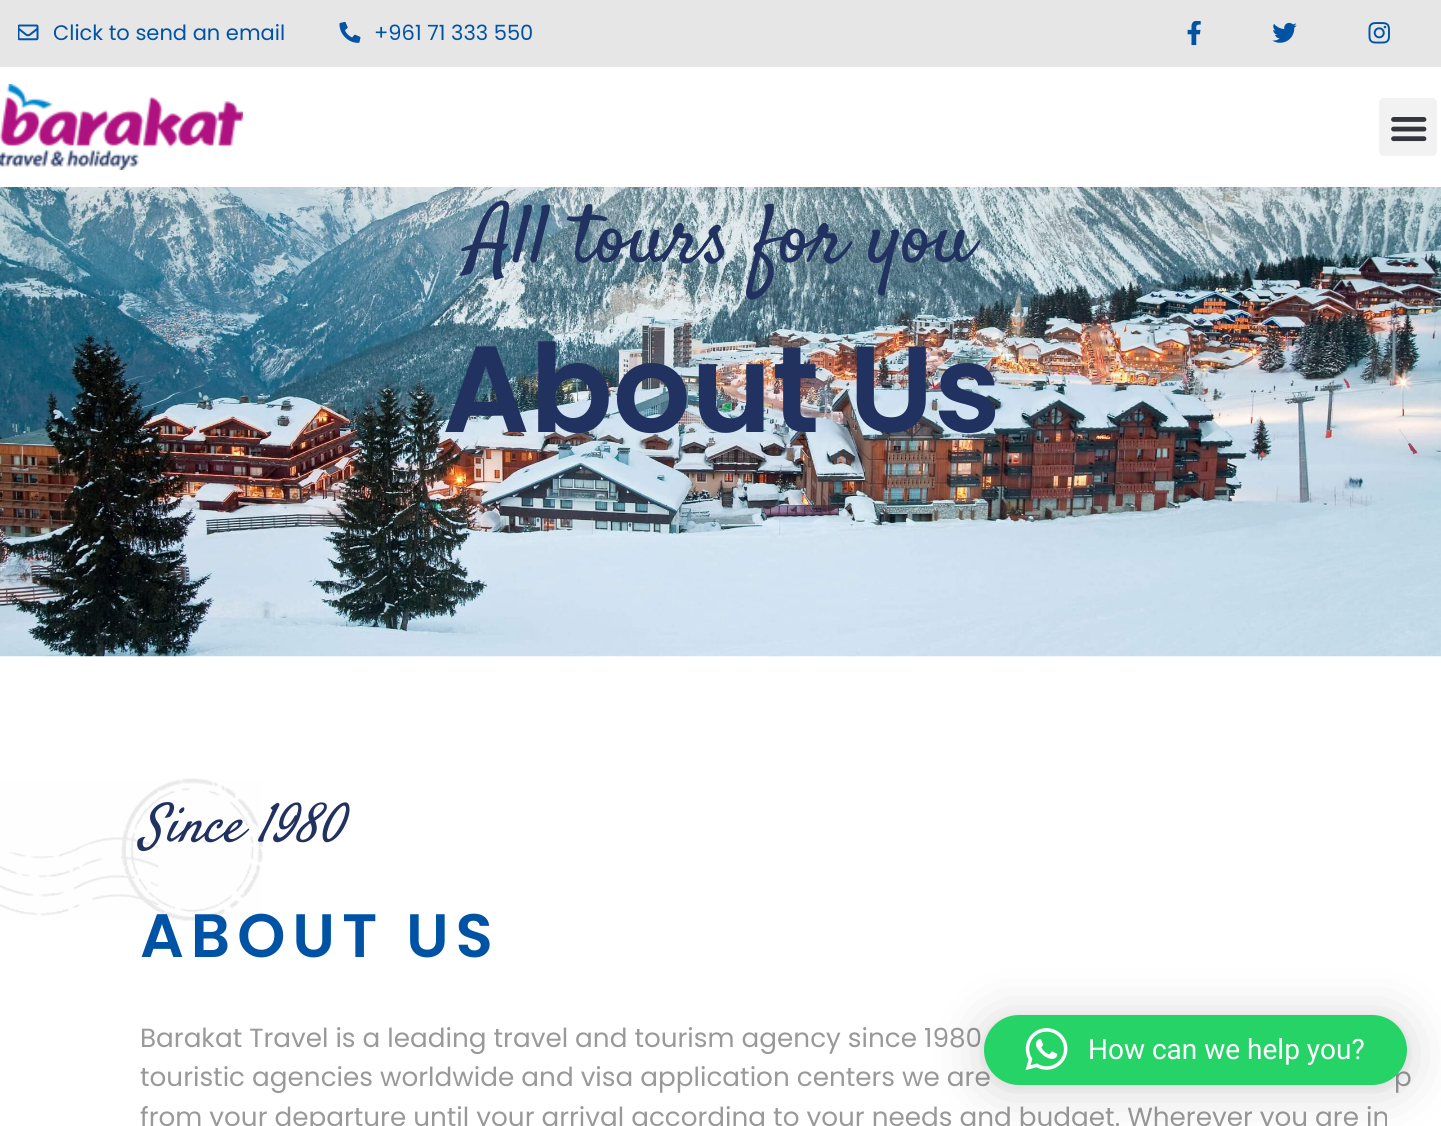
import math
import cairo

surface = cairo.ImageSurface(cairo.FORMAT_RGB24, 1441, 1126)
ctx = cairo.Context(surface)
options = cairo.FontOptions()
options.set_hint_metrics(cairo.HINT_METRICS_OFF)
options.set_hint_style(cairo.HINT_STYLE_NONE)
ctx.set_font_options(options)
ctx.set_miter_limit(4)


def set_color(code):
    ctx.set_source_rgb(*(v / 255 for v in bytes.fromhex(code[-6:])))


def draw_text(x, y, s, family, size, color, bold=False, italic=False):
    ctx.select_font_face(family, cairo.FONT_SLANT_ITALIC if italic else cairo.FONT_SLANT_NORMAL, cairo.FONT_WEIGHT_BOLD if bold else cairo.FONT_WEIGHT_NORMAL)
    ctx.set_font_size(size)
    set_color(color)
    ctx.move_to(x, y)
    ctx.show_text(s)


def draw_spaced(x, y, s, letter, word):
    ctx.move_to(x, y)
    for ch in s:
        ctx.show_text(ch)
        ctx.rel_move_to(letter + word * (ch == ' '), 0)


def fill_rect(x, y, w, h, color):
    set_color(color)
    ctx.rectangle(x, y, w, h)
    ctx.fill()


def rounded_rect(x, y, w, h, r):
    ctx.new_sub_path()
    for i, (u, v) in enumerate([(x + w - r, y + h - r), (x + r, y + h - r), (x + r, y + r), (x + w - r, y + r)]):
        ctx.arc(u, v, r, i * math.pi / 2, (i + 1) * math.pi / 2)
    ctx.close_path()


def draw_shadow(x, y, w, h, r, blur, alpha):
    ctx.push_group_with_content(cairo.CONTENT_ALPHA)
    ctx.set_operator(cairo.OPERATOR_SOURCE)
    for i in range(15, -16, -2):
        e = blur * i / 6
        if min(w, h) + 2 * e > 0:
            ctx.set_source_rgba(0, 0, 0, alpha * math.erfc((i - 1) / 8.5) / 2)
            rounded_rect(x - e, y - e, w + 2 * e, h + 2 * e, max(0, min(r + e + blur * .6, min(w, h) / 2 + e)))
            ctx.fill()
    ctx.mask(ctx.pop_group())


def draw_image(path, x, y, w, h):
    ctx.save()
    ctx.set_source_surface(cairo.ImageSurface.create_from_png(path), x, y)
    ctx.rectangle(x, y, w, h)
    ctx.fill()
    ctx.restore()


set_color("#ffffff")
ctx.paint()
fill_rect(0, 0, 1441, 67, "#e6e6e6")
draw_image("assets/img1.png", 18, 24, 21, 17)
draw_text(53, 40, "Click to send an email", "Poppins", 21, "#0053a4")
draw_image("assets/img2.png", 339, 21, 22, 22)
draw_text(374, 40, "+961 71 333 550", "Poppins", 21, "#0053a4")
draw_image("assets/img3.png", 1187, 21, 14, 25)
draw_image("assets/img4.png", 1272, 22, 25, 21)
draw_image("assets/img5.png", 1368, 22, 22, 22)
draw_image("assets/img6.png", 0, 84, 243, 86)
set_color("#f2f2f2")
rounded_rect(1379, 98, 58, 58, 5)
ctx.fill()
draw_image("assets/img7.png", 1391, 117, 36, 25)
draw_image("assets/img8.png", 0, 187, 1441, 470)
draw_text(468, 261, "All tours for you", "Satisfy", 82.25, "#213160")
draw_text(442, 432, "About Us", "Poppins SemiBold", 122.5, "#213160")
draw_image("assets/img9.png", 0, 778, 263, 143)
draw_text(140, 841, "Since 1980", "Satisfy", 52.5, "#213160", italic=True)
ctx.select_font_face("Poppins SemiBold")
ctx.set_font_size(61.25)
set_color("#0053a4")
draw_spaced(140, 957, "ABOUT US", 7, 0)
draw_text(140, 1047, "Barakat Travel is a leading travel and tourism agency since 1980", "Poppins", 26.25, "#999999")
draw_text(140, 1086, "touristic agencies worldwide and visa application centers we are", "Poppins", 26.25, "#999999")
draw_text(1394, 1086, "p", "Poppins", 26.25, "#999999")
draw_text(140, 1126, "from your departure until your arrival according to your needs and budget. Wherever you are in", "Poppins", 26.25, "#999999")
set_color("#000000")
draw_shadow(984, 1019, 423, 70, 35, 28, 0.16)
draw_shadow(984, 1017, 423, 70, 35, 5, 0.06)
set_color("#25d366")
rounded_rect(984, 1015, 423, 70, 35)
ctx.fill()
draw_image("assets/img10.png", 1025, 1028, 43, 43)
draw_text(1088, 1059, "How can we help you?", "Roboto", 28, "#ffffff")
surface.write_to_png("output.png")
